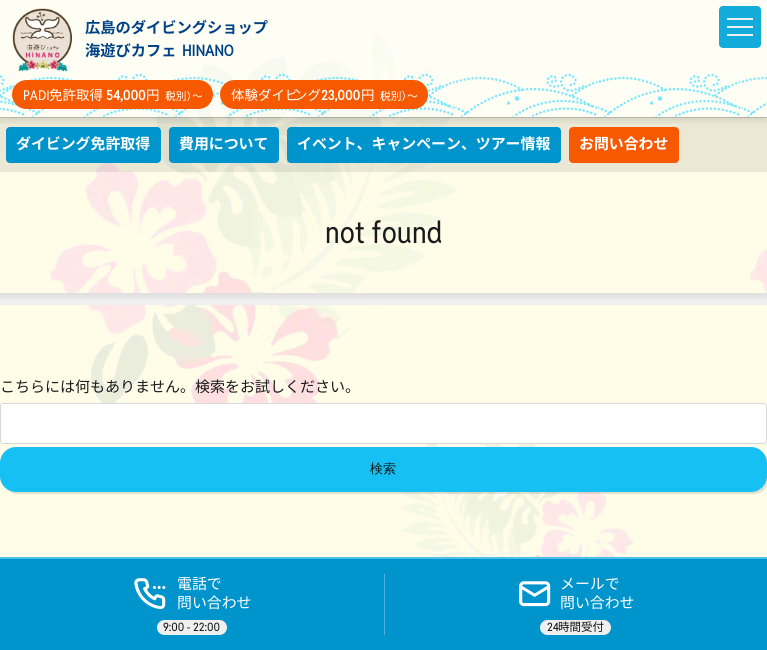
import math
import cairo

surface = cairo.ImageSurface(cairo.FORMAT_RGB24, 767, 650)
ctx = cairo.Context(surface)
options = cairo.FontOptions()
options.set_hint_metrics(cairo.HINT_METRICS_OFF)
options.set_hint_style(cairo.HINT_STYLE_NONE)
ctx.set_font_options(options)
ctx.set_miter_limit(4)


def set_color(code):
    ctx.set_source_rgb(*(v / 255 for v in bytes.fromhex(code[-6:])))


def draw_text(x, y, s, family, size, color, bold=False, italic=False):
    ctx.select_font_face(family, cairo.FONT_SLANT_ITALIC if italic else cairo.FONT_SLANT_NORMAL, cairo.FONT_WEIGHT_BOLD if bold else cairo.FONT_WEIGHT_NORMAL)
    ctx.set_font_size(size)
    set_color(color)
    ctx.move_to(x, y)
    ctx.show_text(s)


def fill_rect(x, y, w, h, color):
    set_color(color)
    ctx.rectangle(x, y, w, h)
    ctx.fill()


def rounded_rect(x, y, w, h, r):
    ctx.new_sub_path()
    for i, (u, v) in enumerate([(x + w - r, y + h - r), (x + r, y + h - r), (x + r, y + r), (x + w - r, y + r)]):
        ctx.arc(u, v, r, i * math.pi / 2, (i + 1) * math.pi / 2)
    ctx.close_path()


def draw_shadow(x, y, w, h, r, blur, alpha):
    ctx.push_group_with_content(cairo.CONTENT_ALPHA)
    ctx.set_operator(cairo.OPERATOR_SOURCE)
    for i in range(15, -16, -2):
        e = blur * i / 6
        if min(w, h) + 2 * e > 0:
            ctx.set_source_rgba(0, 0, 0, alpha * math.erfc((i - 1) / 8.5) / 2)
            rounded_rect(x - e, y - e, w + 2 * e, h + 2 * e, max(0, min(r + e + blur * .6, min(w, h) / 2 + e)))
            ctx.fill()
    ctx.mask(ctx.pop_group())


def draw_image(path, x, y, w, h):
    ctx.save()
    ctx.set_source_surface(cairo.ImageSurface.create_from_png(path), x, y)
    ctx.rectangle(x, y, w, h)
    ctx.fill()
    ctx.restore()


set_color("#fffde8")
ctx.paint()
draw_image("assets/img1.png", 49, 33, 718, 524)
ctx.set_source_rgba(0, 0, 0, 0.08)
ctx.rectangle(0, 117, 767, 55)
ctx.fill()
ctx.set_source_rgba(0, 0, 0, 0.15)
ctx.rectangle(0, 117, 767, 1)
ctx.fill()
set_color("#0094cc")
rounded_rect(6, 127, 155, 36, 4)
ctx.fill()
rounded_rect(169, 127, 110, 36, 4)
ctx.fill()
rounded_rect(287, 127, 274, 36, 4)
ctx.fill()
set_color("#f75900")
rounded_rect(569, 127, 110, 36, 4)
ctx.fill()
ctx.save()
ctx.rectangle(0, 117, 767, 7)
ctx.clip()
set_color("#000000")
draw_shadow(0, 4, 767, 117, 0, 4, 0.1)
ctx.restore()
ctx.set_source_rgba(1, 1, 1, 0.5)
ctx.rectangle(0, 0, 767, 117)
ctx.fill()
draw_image("assets/img2.png", 0, 73, 767, 44)
draw_image("assets/img3.png", 12, 8, 60, 64)
draw_text(85, 33, "広島のダイビングショップ", "Noto Sans CJK JP", 15.25, "#004286", bold=True)
draw_text(85, 56, "海遊びカフェ", "Noto Sans CJK JP", 15.25, "#004286", bold=True)
draw_text(182, 56, "HINANO", "Reddit Sans Condensed", 15.25, "#004286", bold=True)
set_color("#13acda")
rounded_rect(719, 6, 42, 42, 4)
ctx.fill()
fill_rect(727, 26, 26, 2, "#f0f0f0")
fill_rect(727, 18, 26, 2, "#f0f0f0")
fill_rect(727, 34, 26, 2, "#f0f0f0")
set_color("#f75900")
rounded_rect(12, 80, 201, 29, 14.5)
ctx.fill()
draw_text(23, 100, "PADI", "Reddit Sans Condensed", 13.5, "#ffffff")
draw_text(49, 100, "免許取得", "Noto Sans CJK JP", 13.5, "#ffffff")
draw_text(106, 100, "54,000", "Reddit Sans Condensed", 13.5, "#ffffff", bold=True)
draw_text(146, 100, "円", "Noto Sans CJK JP", 13.5, "#ffffff")
draw_text(160, 100, "（", "Noto Sans CJK JP", 10.75, "#ffffff")
draw_text(165, 100, "税別）", "Noto Sans CJK JP", 10.75, "#ffffff")
draw_text(192, 100, "～", "Noto Sans CJK JP", 10.75, "#ffffff")
set_color("#f75900")
rounded_rect(220, 80, 208, 29, 14.5)
ctx.fill()
draw_text(231, 100, "体験ダイビ", "Noto Sans CJK JP", 13.5, "#ffffff")
draw_text(294, 100, "ング", "Noto Sans CJK JP", 13.5, "#ffffff")
draw_text(321, 100, "23,000", "Reddit Sans Condensed", 13.5, "#ffffff", bold=True)
draw_text(361, 100, "円", "Noto Sans CJK JP", 13.5, "#ffffff")
draw_text(374, 100, "（", "Noto Sans CJK JP", 10.75, "#ffffff")
draw_text(380, 100, "税別）", "Noto Sans CJK JP", 10.75, "#ffffff")
draw_text(407, 100, "～", "Noto Sans CJK JP", 10.75, "#ffffff")
draw_text(16, 149, "ダイビング免許取得", "Noto Sans CJK JP", 14.9, "#ffffff", bold=True)
draw_text(179, 149, "費用について", "Noto Sans CJK JP", 14.9, "#ffffff", bold=True)
draw_text(297, 149, "イベント、キャンペーン、ツアー情報", "Noto Sans CJK JP", 14.9, "#ffffff", bold=True)
draw_text(579, 149, "お問い合わせ", "Noto Sans CJK JP", 14.9, "#ffffff", bold=True)
fill_rect(0, 293, 767, 12, "#efefef")
ctx.save()
ctx.rectangle(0, 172, 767, 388)
ctx.clip()
ctx.rectangle(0, 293, 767, 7)
ctx.clip()
set_color("#000000")
draw_shadow(-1, 171, 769, 123, 0, 6, 0.13)
ctx.restore()
draw_text(325, 243, "not found", "Reddit Sans Condensed", 30, "#191a1b")
draw_text(0, 392, "こちらには何もありません。検索をお試しください。", "Noto Sans CJK JP", 15, "#191a1b")
set_color("#ffffff")
rounded_rect(0, 403, 767, 41, 3)
ctx.fill()
rounded_rect(0.5, 403.5, 766, 40, 2.5)
ctx.set_source_rgba(0, 0, 0, 0.15)
ctx.set_line_width(1)
ctx.stroke()
ctx.set_source_rgba(0, 0, 0, 0.12)
ctx.new_path()
ctx.move_to(6, 488)
ctx.curve_to(9, 492, 13, 494, 18, 494)
ctx.line_to(753, 494)
ctx.curve_to(762, 494, 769, 487, 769, 478)
ctx.line_to(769, 465)
ctx.curve_to(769, 460, 767, 456, 763, 453)
ctx.curve_to(766, 456, 767, 459, 767, 463)
ctx.line_to(767, 476)
ctx.curve_to(767, 485, 760, 492, 751, 492)
ctx.line_to(16, 492)
ctx.curve_to(12, 492, 9, 491, 6, 488)
ctx.close_path()
ctx.fill()
set_color("#16c0f3")
rounded_rect(0, 447, 767, 45, 16)
ctx.fill()
draw_text(370, 473, "検索", "WenQuanYi Zen Hei Medium", 13, "#191a1b")
fill_rect(0, 559, 767, 91, "#0094cc")
fill_rect(0, 557, 767, 2, "#4bbeea")
draw_image("assets/img4.png", 134, 578, 32, 32)
draw_text(177, 589, "電話で", "Noto Sans CJK JP", 14.9, "#ffffff")
draw_text(177, 608, "問い合わせ", "Noto Sans CJK JP", 14.9, "#ffffff")
set_color("#efefef")
rounded_rect(157, 620, 70, 15, 7.5)
ctx.fill()
draw_text(163, 631, "9:00 - 22:00", "Reddit Sans Condensed", 11.5, "#101111")
fill_rect(384, 574, 1, 61, "#4db4db")
draw_image("assets/img5.png", 519, 581, 32, 26)
draw_text(560, 589, "メールで", "Noto Sans CJK JP", 14.9, "#ffffff")
draw_text(560, 608, "問い合わせ", "Noto Sans CJK JP", 14.9, "#ffffff")
set_color("#efefef")
rounded_rect(540, 620, 71, 15, 7.5)
ctx.fill()
draw_text(547, 631, "24", "Reddit Sans Condensed", 11.5, "#101111")
draw_text(558, 631, "時間受付", "Noto Sans CJK JP", 11.5, "#101111")
surface.write_to_png("output.png")
